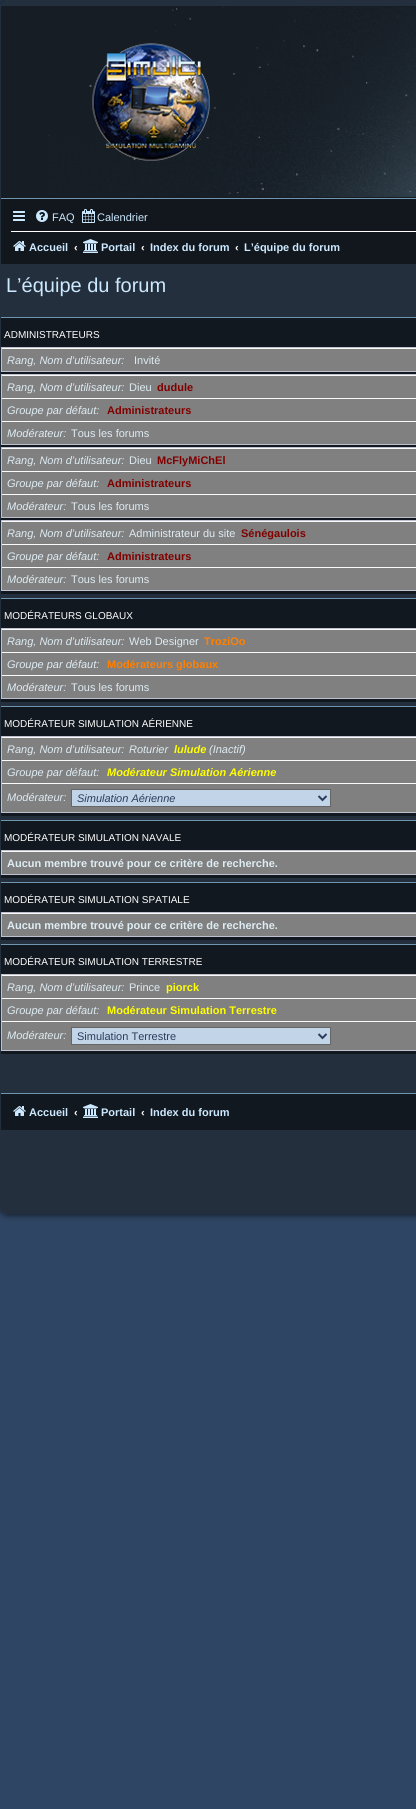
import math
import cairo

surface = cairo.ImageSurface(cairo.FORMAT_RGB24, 416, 1809)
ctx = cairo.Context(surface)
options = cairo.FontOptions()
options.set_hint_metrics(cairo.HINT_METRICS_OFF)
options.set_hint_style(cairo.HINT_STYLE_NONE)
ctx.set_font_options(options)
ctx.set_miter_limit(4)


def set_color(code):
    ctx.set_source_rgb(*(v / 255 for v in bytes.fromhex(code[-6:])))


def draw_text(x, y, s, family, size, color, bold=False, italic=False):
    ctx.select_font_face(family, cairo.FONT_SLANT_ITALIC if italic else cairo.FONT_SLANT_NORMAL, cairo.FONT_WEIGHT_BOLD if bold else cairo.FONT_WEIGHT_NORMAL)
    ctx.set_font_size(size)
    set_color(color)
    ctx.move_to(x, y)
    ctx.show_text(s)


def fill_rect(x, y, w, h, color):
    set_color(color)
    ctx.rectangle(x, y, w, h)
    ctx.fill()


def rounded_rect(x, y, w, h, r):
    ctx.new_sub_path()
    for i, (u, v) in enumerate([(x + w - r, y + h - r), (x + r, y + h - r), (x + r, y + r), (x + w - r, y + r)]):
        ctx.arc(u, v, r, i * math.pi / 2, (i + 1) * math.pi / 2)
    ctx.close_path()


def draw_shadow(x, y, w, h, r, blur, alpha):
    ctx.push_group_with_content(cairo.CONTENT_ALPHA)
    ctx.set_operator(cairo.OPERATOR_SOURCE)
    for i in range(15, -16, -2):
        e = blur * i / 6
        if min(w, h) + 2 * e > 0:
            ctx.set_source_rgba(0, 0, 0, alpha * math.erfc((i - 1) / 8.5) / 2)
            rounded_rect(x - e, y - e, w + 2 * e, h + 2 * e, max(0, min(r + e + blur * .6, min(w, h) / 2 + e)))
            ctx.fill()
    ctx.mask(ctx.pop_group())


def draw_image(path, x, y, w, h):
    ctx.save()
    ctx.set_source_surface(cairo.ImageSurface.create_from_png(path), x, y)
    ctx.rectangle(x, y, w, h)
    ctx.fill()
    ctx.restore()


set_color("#2e4563")
ctx.paint()
ctx.save()
ctx.set_fill_rule(cairo.FILL_RULE_EVEN_ODD)
ctx.new_path()
ctx.move_to(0, 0)
ctx.line_to(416, 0)
ctx.line_to(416, 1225)
ctx.line_to(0, 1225)
ctx.close_path()
ctx.move_to(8, 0)
ctx.line_to(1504, 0)
ctx.curve_to(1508.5, 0, 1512, 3.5, 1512, 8)
ctx.line_to(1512, 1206)
ctx.curve_to(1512, 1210.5, 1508.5, 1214, 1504, 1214)
ctx.line_to(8, 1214)
ctx.curve_to(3.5, 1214, 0, 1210.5, 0, 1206)
ctx.line_to(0, 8)
ctx.curve_to(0, 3.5, 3.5, 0, 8, 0)
ctx.close_path()
ctx.clip()
set_color("#000000")
draw_shadow(-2, -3, 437, 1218, 10, 3, 0.62)
ctx.restore()
ctx.set_source_rgba(0.11, 0.11, 0.11, 0.52)
rounded_rect(0, 0, 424, 1214, 8)
ctx.fill()
fill_rect(1, 6, 415, 192, "#161d25")
draw_image("assets/img1.png", 48, 7, 368, 190)
ctx.set_source_rgba(0, 0, 0, 0.5)
ctx.rectangle(1, 199, 415, 65)
ctx.fill()
fill_rect(1, 198, 415, 1, "#6f95b0")
draw_image("assets/img2.png", 13, 211, 12, 10)
draw_image("assets/img3.png", 36, 210, 12, 12)
draw_text(52, 221, "FAQ", "Liberation Sans", 11, "#cce9ff")
draw_image("assets/img4.png", 82, 209, 13, 14)
draw_text(97, 221, "Calendrier", "Liberation Sans", 11, "#cce9ff")
fill_rect(11, 231, 405, 1, "#ffffff")
draw_image("assets/img5.png", 13, 241, 13, 10)
draw_text(29, 251, "Accueil", "Liberation Sans", 11, "#cce9ff", bold=True)
draw_text(74, 251, "‹", "Liberation Sans", 11, "#ffffff", bold=True)
draw_image("assets/img6.png", 83, 239, 15, 14)
draw_text(101, 251, "Portail", "Liberation Sans", 11, "#cce9ff", bold=True)
draw_text(141, 251, "‹", "Liberation Sans", 11, "#ffffff", bold=True)
draw_text(150, 251, "Index du forum", "Liberation Sans", 11, "#cce9ff", bold=True)
draw_text(235, 251, "‹", "Liberation Sans", 11, "#ffffff", bold=True)
draw_text(244, 251, "L’équipe du forum", "Liberation Sans", 11, "#cce9ff", bold=True)
draw_text(6, 292, "L’équipe du forum", "Liberation Sans", 20, "#cce9ff")
fill_rect(1, 318, 415, 276, "#12181f")
fill_rect(1, 317, 415, 1, "#6f95b0")
draw_text(4, 338, "ADMINISTRATEURS", "Liberation Sans", 10, "#ffffff")
fill_rect(2, 349, 414, 22, "#808080")
ctx.rectangle(1.5, 347.5, 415, 24)
set_color("#bfc1cf")
ctx.set_line_width(1)
ctx.stroke()
fill_rect(2, 348, 414, 1, "#fafafa")
draw_text(7, 364, "Rang, Nom d’utilisateur:", "Liberation Sans", 11, "#deecf3", italic=True)
draw_text(134, 364, "Invité", "Liberation Sans", 11, "#deecf3")
fill_rect(2, 376, 414, 68, "#808080")
ctx.rectangle(1.5, 374.5, 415, 70)
set_color("#bfc1cf")
ctx.stroke()
fill_rect(2, 375, 414, 1, "#fafafa")
draw_text(7, 391, "Rang, Nom d’utilisateur:", "Liberation Sans", 11, "#deecf3", italic=True)
draw_text(129, 391, "Dieu", "Liberation Sans", 11, "#deecf3")
draw_text(157, 391, "dudule", "Liberation Sans", 11, "#800000", bold=True)
fill_rect(2, 398, 414, 1, "#fafafa")
draw_text(7, 414, "Groupe par défaut:", "Liberation Sans", 11, "#deecf3", italic=True)
draw_text(107, 414, "Administrateurs", "Liberation Sans", 11, "#800000", bold=True)
fill_rect(2, 421, 414, 1, "#fafafa")
draw_text(7, 437, "Modérateur:", "Liberation Sans", 11, "#deecf3", italic=True)
draw_text(71, 437, "Tous les forums", "Liberation Sans", 11, "#deecf3")
fill_rect(2, 449, 414, 68, "#808080")
ctx.rectangle(1.5, 447.5, 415, 70)
set_color("#bfc1cf")
ctx.stroke()
fill_rect(2, 448, 414, 1, "#fafafa")
draw_text(7, 464, "Rang, Nom d’utilisateur:", "Liberation Sans", 11, "#deecf3", italic=True)
draw_text(129, 464, "Dieu", "Liberation Sans", 11, "#deecf3")
draw_text(157, 464, "McFlyMiChEl", "Liberation Sans", 11, "#800000", bold=True)
fill_rect(2, 471, 414, 1, "#fafafa")
draw_text(7, 487, "Groupe par défaut:", "Liberation Sans", 11, "#deecf3", italic=True)
draw_text(107, 487, "Administrateurs", "Liberation Sans", 11, "#800000", bold=True)
fill_rect(2, 494, 414, 1, "#fafafa")
draw_text(7, 510, "Modérateur:", "Liberation Sans", 11, "#deecf3", italic=True)
draw_text(71, 510, "Tous les forums", "Liberation Sans", 11, "#deecf3")
fill_rect(2, 522, 414, 68, "#808080")
ctx.rectangle(1.5, 520.5, 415, 70)
set_color("#bfc1cf")
ctx.stroke()
fill_rect(2, 521, 414, 1, "#fafafa")
draw_text(7, 537, "Rang, Nom d’utilisateur:", "Liberation Sans", 11, "#deecf3", italic=True)
draw_text(129, 537, "Administrateur du site", "Liberation Sans", 11, "#deecf3")
draw_text(241, 537, "Sénégaulois", "Liberation Sans", 11, "#800000", bold=True)
fill_rect(2, 544, 414, 1, "#fafafa")
draw_text(7, 560, "Groupe par défaut:", "Liberation Sans", 11, "#deecf3", italic=True)
draw_text(107, 560, "Administrateurs", "Liberation Sans", 11, "#800000", bold=True)
fill_rect(2, 567, 414, 1, "#fafafa")
draw_text(7, 583, "Modérateur:", "Liberation Sans", 11, "#deecf3", italic=True)
draw_text(71, 583, "Tous les forums", "Liberation Sans", 11, "#deecf3")
fill_rect(1, 599, 415, 103, "#12181f")
fill_rect(1, 598, 415, 1, "#6f95b0")
draw_text(4, 619, "MODÉRATEURS GLOBAUX", "Liberation Sans", 10, "#ffffff")
fill_rect(2, 630, 414, 68, "#808080")
ctx.rectangle(1.5, 628.5, 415, 70)
set_color("#bfc1cf")
ctx.stroke()
fill_rect(2, 629, 414, 1, "#fafafa")
draw_text(7, 645, "Rang, Nom d’utilisateur:", "Liberation Sans", 11, "#deecf3", italic=True)
draw_text(129, 645, "Web Designer", "Liberation Sans", 11, "#deecf3")
draw_text(204, 645, "TroziOo", "Liberation Sans", 11, "#ff8000", bold=True)
fill_rect(2, 652, 414, 1, "#fafafa")
draw_text(7, 668, "Groupe par défaut:", "Liberation Sans", 11, "#deecf3", italic=True)
draw_text(107, 668, "Modérateurs globaux", "Liberation Sans", 11, "#ff8000", bold=True)
fill_rect(2, 675, 414, 1, "#fafafa")
draw_text(7, 691, "Modérateur:", "Liberation Sans", 11, "#deecf3", italic=True)
draw_text(71, 691, "Tous les forums", "Liberation Sans", 11, "#deecf3")
fill_rect(1, 707, 415, 109, "#12181f")
fill_rect(1, 706, 415, 1, "#6f95b0")
draw_text(4, 727, "MODÉRATEUR SIMULATION AÉRIENNE", "Liberation Sans", 10, "#ffffff")
fill_rect(2, 738, 414, 74, "#808080")
ctx.rectangle(1.5, 736.5, 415, 76)
set_color("#bfc1cf")
ctx.stroke()
fill_rect(2, 737, 414, 1, "#fafafa")
draw_text(7, 753, "Rang, Nom d’utilisateur:", "Liberation Sans", 11, "#deecf3", italic=True)
draw_text(129, 753, "Roturier", "Liberation Sans", 11, "#deecf3", italic=True)
draw_text(174, 753, "lulude", "Liberation Sans", 11, "#ffff00", bold=True, italic=True)
draw_text(209, 753, "(Inactif)", "Liberation Sans", 11, "#deecf3", italic=True)
fill_rect(2, 760, 414, 1, "#fafafa")
draw_text(7, 776, "Groupe par défaut:", "Liberation Sans", 11, "#deecf3", italic=True)
draw_text(107, 776, "Modérateur Simulation Aérienne", "Liberation Sans", 11, "#ffff00", bold=True, italic=True)
fill_rect(2, 783, 414, 1, "#fafafa")
draw_text(7, 801, "Modérateur:", "Liberation Sans", 11, "#deecf3", italic=True)
set_color("#c2d4e8")
ctx.rectangle(71.5, 789.5, 259, 17)
ctx.fill_preserve()
set_color("#666666")
ctx.stroke()
ctx.new_path()
ctx.move_to(318.5, 796)
ctx.line_to(322.5, 800)
ctx.line_to(326.5, 796)
set_color("#2b3c5a")
ctx.set_line_width(2)
ctx.stroke()
draw_text(77, 802, "Simulation Aérienne", "Liberation Sans", 11, "#2b3c5a", italic=True)
fill_rect(1, 821, 415, 57, "#12181f")
fill_rect(1, 820, 415, 1, "#6f95b0")
draw_text(4, 841, "MODÉRATEUR SIMULATION NAVALE", "Liberation Sans", 10, "#ffffff")
fill_rect(2, 852, 414, 22, "#808080")
ctx.rectangle(1.5, 850.5, 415, 24)
set_color("#bfc1cf")
ctx.set_line_width(1)
ctx.stroke()
fill_rect(2, 851, 414, 1, "#fafafa")
draw_text(7, 867, "Aucun membre trouvé pour ce critère de recherche.", "Liberation Sans", 11, "#deecf3", bold=True)
fill_rect(1, 883, 415, 57, "#12181f")
fill_rect(1, 882, 415, 1, "#6f95b0")
draw_text(4, 903, "MODÉRATEUR SIMULATION SPATIALE", "Liberation Sans", 10, "#ffffff")
fill_rect(2, 914, 414, 22, "#808080")
ctx.rectangle(1.5, 912.5, 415, 24)
set_color("#bfc1cf")
ctx.stroke()
fill_rect(2, 913, 414, 1, "#fafafa")
draw_text(7, 929, "Aucun membre trouvé pour ce critère de recherche.", "Liberation Sans", 11, "#deecf3", bold=True)
fill_rect(1, 945, 415, 109, "#12181f")
fill_rect(1, 944, 415, 1, "#6f95b0")
draw_text(4, 965, "MODÉRATEUR SIMULATION TERRESTRE", "Liberation Sans", 10, "#ffffff")
fill_rect(2, 976, 414, 74, "#808080")
ctx.rectangle(1.5, 974.5, 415, 76)
set_color("#bfc1cf")
ctx.stroke()
fill_rect(2, 975, 414, 1, "#fafafa")
draw_text(7, 991, "Rang, Nom d’utilisateur:", "Liberation Sans", 11, "#deecf3", italic=True)
draw_text(129, 991, "Prince", "Liberation Sans", 11, "#deecf3")
draw_text(166, 991, "piorck", "Liberation Sans", 11, "#ffff00", bold=True)
fill_rect(2, 998, 414, 1, "#fafafa")
draw_text(7, 1014, "Groupe par défaut:", "Liberation Sans", 11, "#deecf3", italic=True)
draw_text(107, 1014, "Modérateur Simulation Terrestre", "Liberation Sans", 11, "#ffff00", bold=True)
fill_rect(2, 1021, 414, 1, "#fafafa")
draw_text(7, 1039, "Modérateur:", "Liberation Sans", 11, "#deecf3", italic=True)
set_color("#c2d4e8")
ctx.rectangle(71.5, 1027.5, 259, 17)
ctx.fill_preserve()
set_color("#666666")
ctx.stroke()
ctx.new_path()
ctx.move_to(318.5, 1034)
ctx.line_to(322.5, 1038)
ctx.line_to(326.5, 1034)
set_color("#2b3c5a")
ctx.set_line_width(2)
ctx.stroke()
draw_text(77, 1040, "Simulation Terrestre", "Liberation Sans", 11, "#2b3c5a")
fill_rect(1, 1094, 415, 36, "#12181f")
fill_rect(1, 1093, 415, 1, "#6f95b0")
draw_image("assets/img7.png", 13, 1106, 13, 10)
draw_text(29, 1116, "Accueil", "Liberation Sans", 11, "#cce9ff", bold=True)
draw_text(74, 1116, "‹", "Liberation Sans", 11, "#ffffff", bold=True)
draw_image("assets/img8.png", 83, 1104, 15, 14)
draw_text(101, 1116, "Portail", "Liberation Sans", 11, "#cce9ff", bold=True)
draw_text(141, 1116, "‹", "Liberation Sans", 11, "#ffffff", bold=True)
draw_text(150, 1116, "Index du forum", "Liberation Sans", 11, "#cce9ff", bold=True)
surface.write_to_png("output.png")
